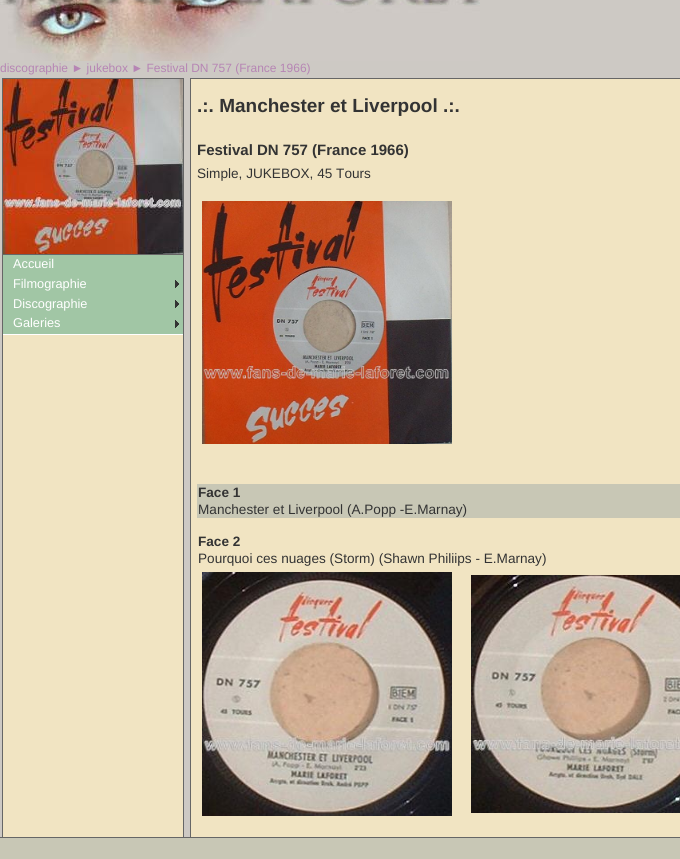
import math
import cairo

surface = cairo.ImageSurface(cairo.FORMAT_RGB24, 680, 859)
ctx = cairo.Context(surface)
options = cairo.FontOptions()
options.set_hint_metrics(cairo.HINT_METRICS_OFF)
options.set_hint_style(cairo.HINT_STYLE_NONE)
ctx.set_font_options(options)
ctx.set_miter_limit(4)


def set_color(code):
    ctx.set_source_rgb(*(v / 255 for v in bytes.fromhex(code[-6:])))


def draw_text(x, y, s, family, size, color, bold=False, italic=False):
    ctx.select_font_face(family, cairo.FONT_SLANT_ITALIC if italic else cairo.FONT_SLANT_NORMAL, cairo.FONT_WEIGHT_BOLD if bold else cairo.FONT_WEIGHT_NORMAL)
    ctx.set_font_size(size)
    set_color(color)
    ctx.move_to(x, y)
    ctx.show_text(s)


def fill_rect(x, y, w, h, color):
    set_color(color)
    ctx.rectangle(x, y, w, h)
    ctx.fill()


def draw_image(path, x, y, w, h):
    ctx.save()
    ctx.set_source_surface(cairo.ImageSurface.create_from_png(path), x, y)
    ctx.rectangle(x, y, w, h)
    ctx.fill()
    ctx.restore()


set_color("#c8c7b5")
ctx.paint()
fill_rect(0, 0, 680, 837, "#cdc9c4")
draw_image("assets/img1.png", 0, 0, 480, 61)
draw_text(0, 72, "discographie ► jukebox ► Festival DN 757 (France 1966)", "Liberation Sans", 12, "#b685b4")
fill_rect(3, 335, 180, 502, "#f1e4c2")
fill_rect(0, 837, 190, 1, "#666666")
ctx.rectangle(2.5, 78.5, 181, 759)
ctx.set_line_width(1)
ctx.stroke()
draw_image("assets/img2.png", 3, 79, 180, 175)
fill_rect(3, 254, 180, 1, "#666666")
fill_rect(3, 334, 180, 1, "#ffffff")
fill_rect(3, 255, 180, 79, "#a1c6a5")
draw_text(13, 268, "Accueil", "Liberation Sans", 12.75, "#ffffff")
draw_image("assets/img3.png", 175, 280, 4, 8)
draw_text(13, 288, "Filmographie", "Liberation Sans", 12.75, "#ffffff")
draw_image("assets/img3.png", 175, 300, 4, 8)
draw_text(13, 308, "Discographie", "Liberation Sans", 12.75, "#ffffff")
draw_image("assets/img3.png", 175, 320, 4, 8)
draw_text(13, 327, "Galeries", "Liberation Sans", 12.75, "#ffffff")
set_color("#f1e4c2")
ctx.rectangle(190.5, 78.5, 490, 759)
ctx.fill_preserve()
set_color("#666666")
ctx.stroke()
draw_text(197, 112, ".:. Manchester et Liverpool .:.", "Liberation Sans", 19, "#333333", bold=True)
draw_text(197, 155, "Festival DN 757 (France 1966)", "Liberation Sans", 15, "#333333", bold=True)
draw_text(197, 178, "Simple, JUKEBOX, 45 Tours", "Liberation Sans", 13.6, "#333333")
draw_image("assets/img4.png", 202, 201, 250, 243)
fill_rect(197, 484, 483, 34, "#c8c7b5")
draw_text(198, 497, "Face 1", "Liberation Sans", 13.6, "#333333", bold=True)
draw_text(198, 514, "Manchester et Liverpool (A.Popp -E.Marnay)", "Liberation Sans", 13.6, "#333333")
draw_text(198, 546, "Face 2", "Liberation Sans", 13.6, "#333333", bold=True)
draw_text(198, 563, "Pourquoi ces nuages (Storm) (Shawn Philiips - E.Marnay)", "Liberation Sans", 13.6, "#333333")
draw_image("assets/img5.png", 202, 572, 250, 244)
draw_image("assets/img6.png", 471, 575, 209, 238)
surface.write_to_png("output.png")
